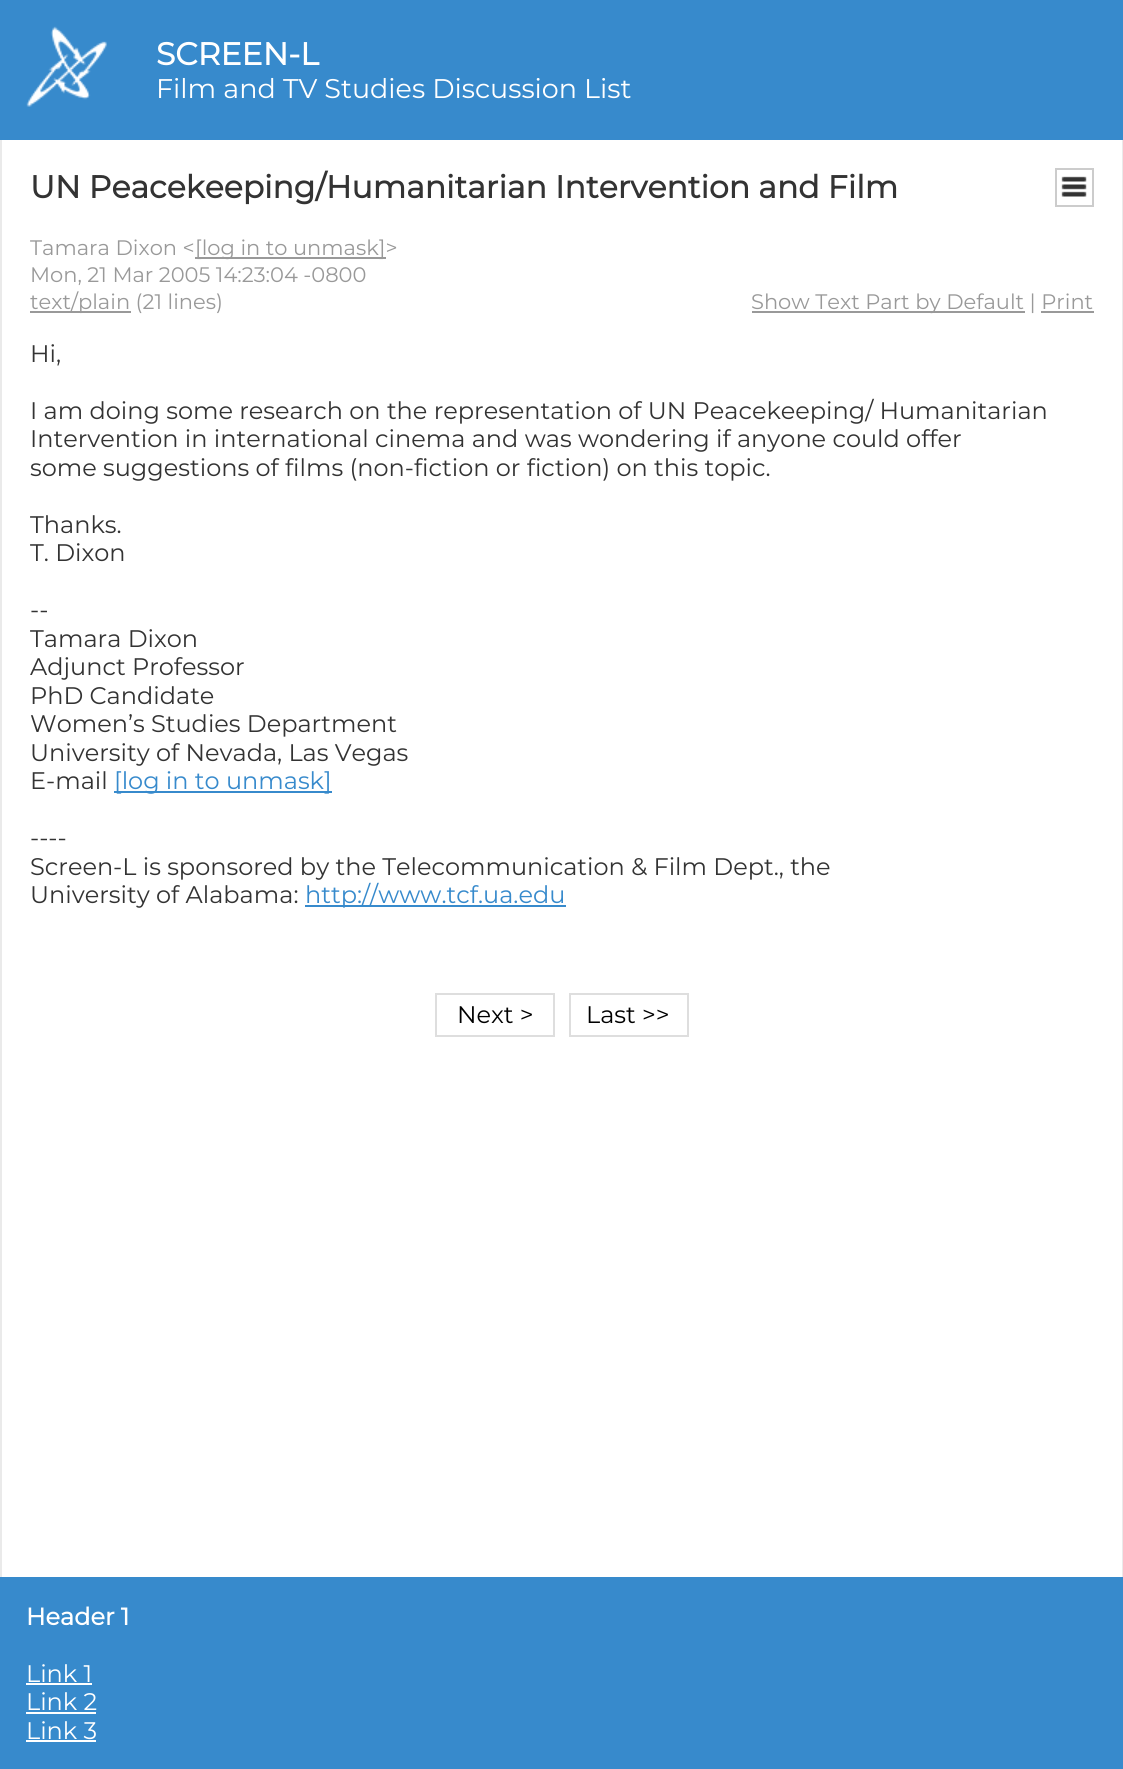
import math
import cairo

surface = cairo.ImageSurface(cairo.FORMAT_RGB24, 1123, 1769)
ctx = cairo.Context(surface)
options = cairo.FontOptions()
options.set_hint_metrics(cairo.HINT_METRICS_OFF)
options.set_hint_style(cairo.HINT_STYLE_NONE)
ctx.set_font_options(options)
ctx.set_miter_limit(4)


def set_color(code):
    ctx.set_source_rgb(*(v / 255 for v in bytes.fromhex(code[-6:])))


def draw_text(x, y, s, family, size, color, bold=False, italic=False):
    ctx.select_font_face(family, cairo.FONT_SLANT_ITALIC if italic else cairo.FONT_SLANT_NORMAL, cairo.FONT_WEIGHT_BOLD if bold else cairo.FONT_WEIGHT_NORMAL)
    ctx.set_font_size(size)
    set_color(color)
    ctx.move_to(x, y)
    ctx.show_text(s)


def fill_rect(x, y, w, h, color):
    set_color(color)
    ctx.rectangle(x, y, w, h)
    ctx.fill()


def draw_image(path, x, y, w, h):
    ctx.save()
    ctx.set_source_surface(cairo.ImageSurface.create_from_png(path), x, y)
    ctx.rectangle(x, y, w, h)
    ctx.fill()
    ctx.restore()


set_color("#378acc")
ctx.paint()
draw_image("assets/img1.png", 26, 26, 81, 81)
draw_text(156, 65, "SCREEN-L", "Montserrat", 31.5, "#ffffff", bold=True)
draw_text(156, 98, "Film and TV Studies Discussion List", "Montserrat Thin", 27, "#ffffff")
fill_rect(2, 140, 1120, 1437, "#ffffff")
fill_rect(1122, 140, 1, 1437, "#eaeaea")
fill_rect(0, 140, 2, 1437, "#eaeaea")
ctx.rectangle(1056, 169, 37, 37)
set_color("#cccccc")
ctx.stroke()
draw_image("assets/img2.png", 1061, 176, 26, 21)
draw_text(30, 198, "UN Peacekeeping/Humanitarian Intervention and Film", "Montserrat", 31.5, "#333333", bold=True)
draw_text(30, 255, "Tamara Dixon <", "Montserrat Thin", 21, "#999999")
fill_rect(195, 257, 191, 2, "#999999")
draw_text(195, 255, "[log in to unmask]>", "Montserrat Thin", 21, "#999999")
draw_text(30, 282, "Mon, 21 Mar 2005 14:23:04 -0800", "Montserrat Thin", 21, "#999999")
fill_rect(30, 311, 101, 2, "#999999")
draw_text(30, 309, "text/plain (21 lines)", "Montserrat Thin", 21, "#999999")
fill_rect(752, 311, 273, 2, "#999999")
draw_text(751, 309, "Show Text Part by Default | Print", "Montserrat Thin", 21, "#999999")
fill_rect(1041, 311, 53, 2, "#999999")
draw_text(30, 362, "Hi,", "Montserrat Thin", 24, "#333333")
draw_text(30, 419, "I am doing some research on the representation of UN Peacekeeping/ Humanitarian", "Montserrat Thin", 24, "#333333")
draw_text(30, 447, "Intervention in international cinema and was wondering if anyone could offer", "Montserrat Thin", 24, "#333333")
draw_text(30, 476, "some suggestions of films (non-fiction or fiction) on this topic.", "Montserrat Thin", 24, "#333333")
draw_text(30, 533, "Thanks.", "Montserrat Thin", 24, "#333333")
draw_text(30, 561, "T. Dixon", "Montserrat Thin", 24, "#333333")
draw_text(30, 618, "--", "Montserrat Thin", 24, "#333333")
draw_text(30, 647, "Tamara Dixon", "Montserrat Thin", 24, "#333333")
draw_text(30, 675, "Adjunct Professor", "Montserrat Thin", 24, "#333333")
draw_text(30, 704, "PhD Candidate", "Montserrat Thin", 24, "#333333")
draw_text(30, 732, "Women’s Studies Department", "Montserrat Thin", 24, "#333333")
draw_text(30, 761, "University of Nevada, Las Vegas", "Montserrat Thin", 24, "#333333")
draw_text(30, 789, "E-mail", "Montserrat Thin", 24, "#333333")
fill_rect(114, 791, 218, 2, "#378acc")
draw_text(114, 789, "[log in to unmask]", "Montserrat Thin", 24, "#378acc")
draw_text(30, 846, "----", "Montserrat Thin", 24, "#333333")
draw_text(30, 875, "Screen-L is sponsored by the Telecommunication & Film Dept., the", "Montserrat Thin", 24, "#333333")
draw_text(30, 903, "University of Alabama:", "Montserrat Thin", 24, "#333333")
fill_rect(305, 905, 261, 2, "#378acc")
draw_text(305, 903, "http://www.tcf.ua.edu", "Montserrat Thin", 24, "#378acc")
ctx.rectangle(436, 994, 118, 42)
set_color("#dedede")
ctx.stroke()
draw_text(457, 1023, "Next >", "Montserrat Thin", 24, "#000000")
ctx.rectangle(570, 994, 118, 42)
set_color("#dedede")
ctx.stroke()
draw_text(586, 1023, "Last >>", "Montserrat Thin", 24, "#000000")
draw_text(26, 1625, "Header 1", "Montserrat", 24, "#ffffff", bold=True)
draw_text(26, 1682, "Link 1", "Montserrat Thin", 24, "#ffffff")
fill_rect(26, 1683, 66, 2, "#ffffff")
draw_text(26, 1710, "Link 2", "Montserrat Thin", 24, "#ffffff")
fill_rect(26, 1712, 70, 2, "#ffffff")
draw_text(26, 1739, "Link 3", "Montserrat Thin", 24, "#ffffff")
fill_rect(26, 1740, 70, 2, "#ffffff")
surface.write_to_png("output.png")
